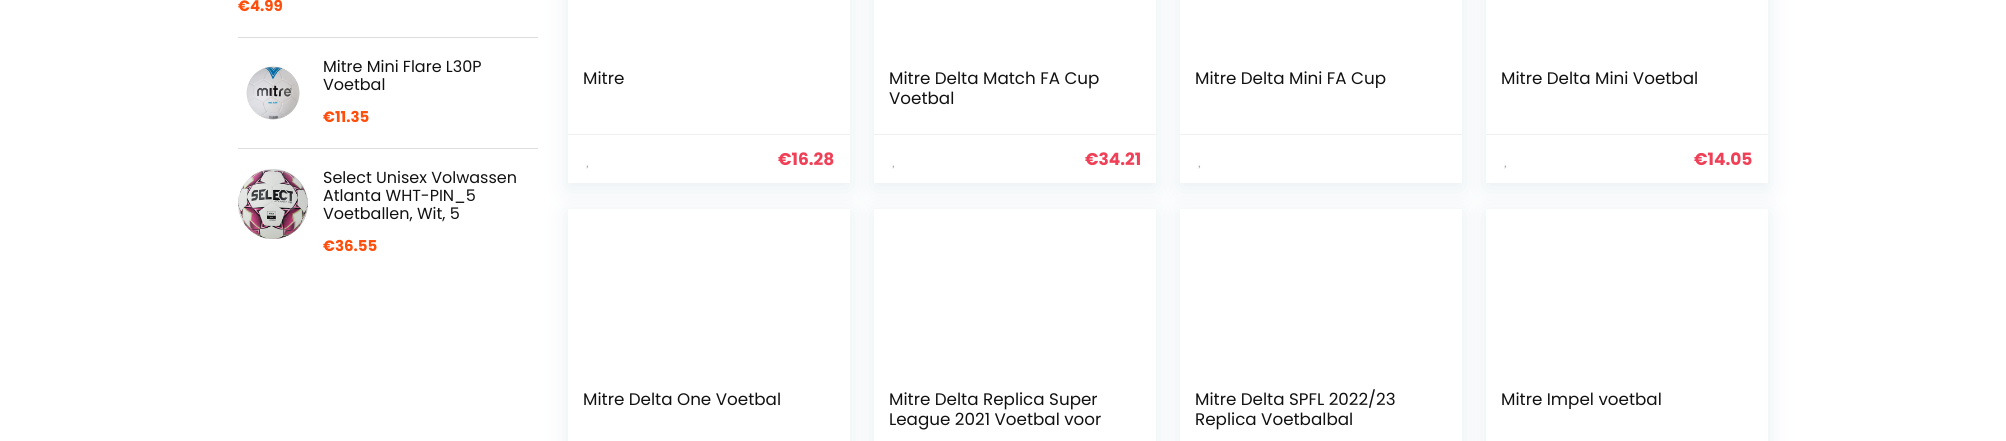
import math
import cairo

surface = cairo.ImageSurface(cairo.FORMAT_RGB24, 2006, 441)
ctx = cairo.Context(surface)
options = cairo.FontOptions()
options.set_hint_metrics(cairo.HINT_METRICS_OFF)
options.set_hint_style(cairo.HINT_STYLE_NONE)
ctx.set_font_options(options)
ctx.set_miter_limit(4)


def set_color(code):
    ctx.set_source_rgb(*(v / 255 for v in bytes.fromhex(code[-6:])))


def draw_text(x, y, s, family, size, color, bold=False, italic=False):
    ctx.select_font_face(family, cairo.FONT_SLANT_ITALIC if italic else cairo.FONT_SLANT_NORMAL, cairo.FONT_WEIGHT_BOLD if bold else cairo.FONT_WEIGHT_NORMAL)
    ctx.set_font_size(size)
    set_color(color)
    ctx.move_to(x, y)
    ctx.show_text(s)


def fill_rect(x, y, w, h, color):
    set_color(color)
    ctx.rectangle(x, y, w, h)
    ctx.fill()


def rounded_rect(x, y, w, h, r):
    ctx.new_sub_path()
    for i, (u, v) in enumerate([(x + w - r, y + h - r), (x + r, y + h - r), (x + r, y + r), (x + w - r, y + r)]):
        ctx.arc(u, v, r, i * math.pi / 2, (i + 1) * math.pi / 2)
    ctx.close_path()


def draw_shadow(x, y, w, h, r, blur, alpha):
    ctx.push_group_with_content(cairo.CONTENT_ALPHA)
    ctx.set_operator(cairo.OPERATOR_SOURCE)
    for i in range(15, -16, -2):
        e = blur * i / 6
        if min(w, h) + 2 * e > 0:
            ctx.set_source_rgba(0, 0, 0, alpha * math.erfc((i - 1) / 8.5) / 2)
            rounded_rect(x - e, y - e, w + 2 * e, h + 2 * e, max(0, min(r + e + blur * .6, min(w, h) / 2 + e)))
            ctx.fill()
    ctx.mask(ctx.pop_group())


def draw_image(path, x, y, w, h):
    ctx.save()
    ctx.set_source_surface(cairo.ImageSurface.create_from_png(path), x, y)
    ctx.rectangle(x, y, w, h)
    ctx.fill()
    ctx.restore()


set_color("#ffffff")
ctx.paint()
fill_rect(238, 37, 300, 1, "#dddddd")
draw_text(238, 11, "€4.99", "Poppins", 15, "#ff4e0c", bold=True)
fill_rect(238, 148, 300, 1, "#dddddd")
draw_image("assets/img1.png", 246, 66, 54, 54)
draw_text(323, 72, "Mitre Mini Flare L30P", "Poppins", 16, "#111111")
draw_text(323, 90, "Voetbal", "Poppins", 16, "#111111")
draw_text(323, 122, "€11.35", "Poppins", 15, "#ff4e0c", bold=True)
draw_image("assets/img2.png", 238, 169, 70, 70)
draw_text(323, 183, "Select Unisex Volwassen", "Poppins", 16, "#111111")
draw_text(323, 201, "Atlanta WHT-PIN_5", "Poppins", 16, "#111111")
draw_text(323, 219, "Voetballen, Wit, 5", "Poppins", 16, "#111111")
draw_text(323, 251, "€36.55", "Poppins", 15, "#ff4e0c", bold=True)
ctx.save()
ctx.set_fill_rule(cairo.FILL_RULE_EVEN_ODD)
ctx.new_path()
ctx.move_to(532, 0)
ctx.line_to(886, 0)
ctx.line_to(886, 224)
ctx.line_to(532, 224)
ctx.close_path()
ctx.move_to(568, -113)
ctx.line_to(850, -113)
ctx.line_to(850, 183)
ctx.line_to(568, 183)
ctx.close_path()
ctx.clip()
set_color("#bccfdb")
draw_shadow(568, -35, 282, 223, 0, 11.5, 0.35)
ctx.restore()
draw_text(583, 84, "Mitre", "Poppins", 16.75, "#111111")
fill_rect(568, 134, 282, 1, "#f0f0f0")
draw_text(778, 165, "€16.28", "Poppins", 17, "#f04057", bold=True)
draw_image("assets/img3.png", 586, 165, 3, 4)
ctx.save()
ctx.set_fill_rule(cairo.FILL_RULE_EVEN_ODD)
ctx.new_path()
ctx.move_to(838, 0)
ctx.line_to(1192, 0)
ctx.line_to(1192, 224)
ctx.line_to(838, 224)
ctx.close_path()
ctx.move_to(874, -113)
ctx.line_to(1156, -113)
ctx.line_to(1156, 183)
ctx.line_to(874, 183)
ctx.close_path()
ctx.clip()
set_color("#bccfdb")
draw_shadow(874, -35, 282, 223, 0, 11.5, 0.35)
ctx.restore()
draw_text(889, 84, "Mitre Delta Match FA Cup", "Poppins", 16.75, "#111111")
draw_text(889, 104, "Voetbal", "Poppins", 16.75, "#111111")
fill_rect(874, 134, 282, 1, "#f0f0f0")
draw_text(1085, 165, "€34.21", "Poppins", 17, "#f04057", bold=True)
draw_image("assets/img3.png", 892, 165, 3, 4)
ctx.save()
ctx.set_fill_rule(cairo.FILL_RULE_EVEN_ODD)
ctx.new_path()
ctx.move_to(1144, 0)
ctx.line_to(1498, 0)
ctx.line_to(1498, 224)
ctx.line_to(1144, 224)
ctx.close_path()
ctx.move_to(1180, -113)
ctx.line_to(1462, -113)
ctx.line_to(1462, 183)
ctx.line_to(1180, 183)
ctx.close_path()
ctx.clip()
set_color("#bccfdb")
draw_shadow(1180, -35, 282, 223, 0, 11.5, 0.35)
ctx.restore()
ctx.save()
ctx.rectangle(1195, 68, 237, 20)
ctx.clip()
draw_text(1195, 84, "Mitre Delta Mini FA Cup", "Poppins", 16.75, "#111111")
ctx.restore()
fill_rect(1180, 134, 282, 1, "#f0f0f0")
draw_image("assets/img3.png", 1198, 165, 3, 4)
ctx.save()
ctx.set_fill_rule(cairo.FILL_RULE_EVEN_ODD)
ctx.new_path()
ctx.move_to(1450, 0)
ctx.line_to(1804, 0)
ctx.line_to(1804, 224)
ctx.line_to(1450, 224)
ctx.close_path()
ctx.move_to(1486, -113)
ctx.line_to(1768, -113)
ctx.line_to(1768, 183)
ctx.line_to(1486, 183)
ctx.close_path()
ctx.clip()
set_color("#bccfdb")
draw_shadow(1486, -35, 282, 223, 0, 11.5, 0.35)
ctx.restore()
draw_text(1501, 84, "Mitre Delta Mini Voetbal", "Poppins", 16.75, "#111111")
fill_rect(1486, 134, 282, 1, "#f0f0f0")
draw_text(1694, 165, "€14.05", "Poppins", 17, "#f04057", bold=True)
draw_image("assets/img3.png", 1504, 165, 3, 4)
ctx.save()
ctx.set_fill_rule(cairo.FILL_RULE_EVEN_ODD)
ctx.new_path()
ctx.move_to(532, 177)
ctx.line_to(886, 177)
ctx.line_to(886, 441)
ctx.line_to(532, 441)
ctx.close_path()
ctx.move_to(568, 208)
ctx.line_to(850, 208)
ctx.line_to(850, 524)
ctx.line_to(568, 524)
ctx.close_path()
ctx.clip()
set_color("#bccfdb")
draw_shadow(568, 213, 282, 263, 0, 11.5, 0.35)
ctx.restore()
fill_rect(568, 208, 282, 1, "#f8f8f8")
draw_text(583, 405, "Mitre Delta One Voetbal", "Poppins", 16.75, "#111111")
ctx.save()
ctx.set_fill_rule(cairo.FILL_RULE_EVEN_ODD)
ctx.new_path()
ctx.move_to(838, 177)
ctx.line_to(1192, 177)
ctx.line_to(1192, 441)
ctx.line_to(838, 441)
ctx.close_path()
ctx.move_to(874, 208)
ctx.line_to(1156, 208)
ctx.line_to(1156, 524)
ctx.line_to(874, 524)
ctx.close_path()
ctx.clip()
set_color("#bccfdb")
draw_shadow(874, 213, 282, 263, 0, 11.5, 0.35)
ctx.restore()
fill_rect(874, 208, 282, 1, "#f8f8f8")
draw_text(889, 405, "Mitre Delta Replica Super", "Poppins", 16.75, "#111111")
draw_text(889, 425, "League 2021 Voetbal voor", "Poppins", 16.75, "#111111")
ctx.save()
ctx.set_fill_rule(cairo.FILL_RULE_EVEN_ODD)
ctx.new_path()
ctx.move_to(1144, 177)
ctx.line_to(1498, 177)
ctx.line_to(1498, 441)
ctx.line_to(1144, 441)
ctx.close_path()
ctx.move_to(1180, 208)
ctx.line_to(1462, 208)
ctx.line_to(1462, 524)
ctx.line_to(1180, 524)
ctx.close_path()
ctx.clip()
set_color("#bccfdb")
draw_shadow(1180, 213, 282, 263, 0, 11.5, 0.35)
ctx.restore()
fill_rect(1180, 208, 282, 1, "#f8f8f8")
draw_text(1195, 405, "Mitre Delta SPFL 2022/23", "Poppins", 16.75, "#111111")
draw_text(1195, 425, "Replica Voetbalbal", "Poppins", 16.75, "#111111")
ctx.save()
ctx.set_fill_rule(cairo.FILL_RULE_EVEN_ODD)
ctx.new_path()
ctx.move_to(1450, 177)
ctx.line_to(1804, 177)
ctx.line_to(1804, 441)
ctx.line_to(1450, 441)
ctx.close_path()
ctx.move_to(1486, 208)
ctx.line_to(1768, 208)
ctx.line_to(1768, 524)
ctx.line_to(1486, 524)
ctx.close_path()
ctx.clip()
set_color("#bccfdb")
draw_shadow(1486, 213, 282, 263, 0, 11.5, 0.35)
ctx.restore()
fill_rect(1486, 208, 282, 1, "#f8f8f8")
ctx.save()
ctx.rectangle(1501, 389, 237, 20)
ctx.clip()
draw_text(1501, 405, "Mitre Impel voetbal", "Poppins", 16.75, "#111111")
ctx.restore()
surface.write_to_png("output.png")
